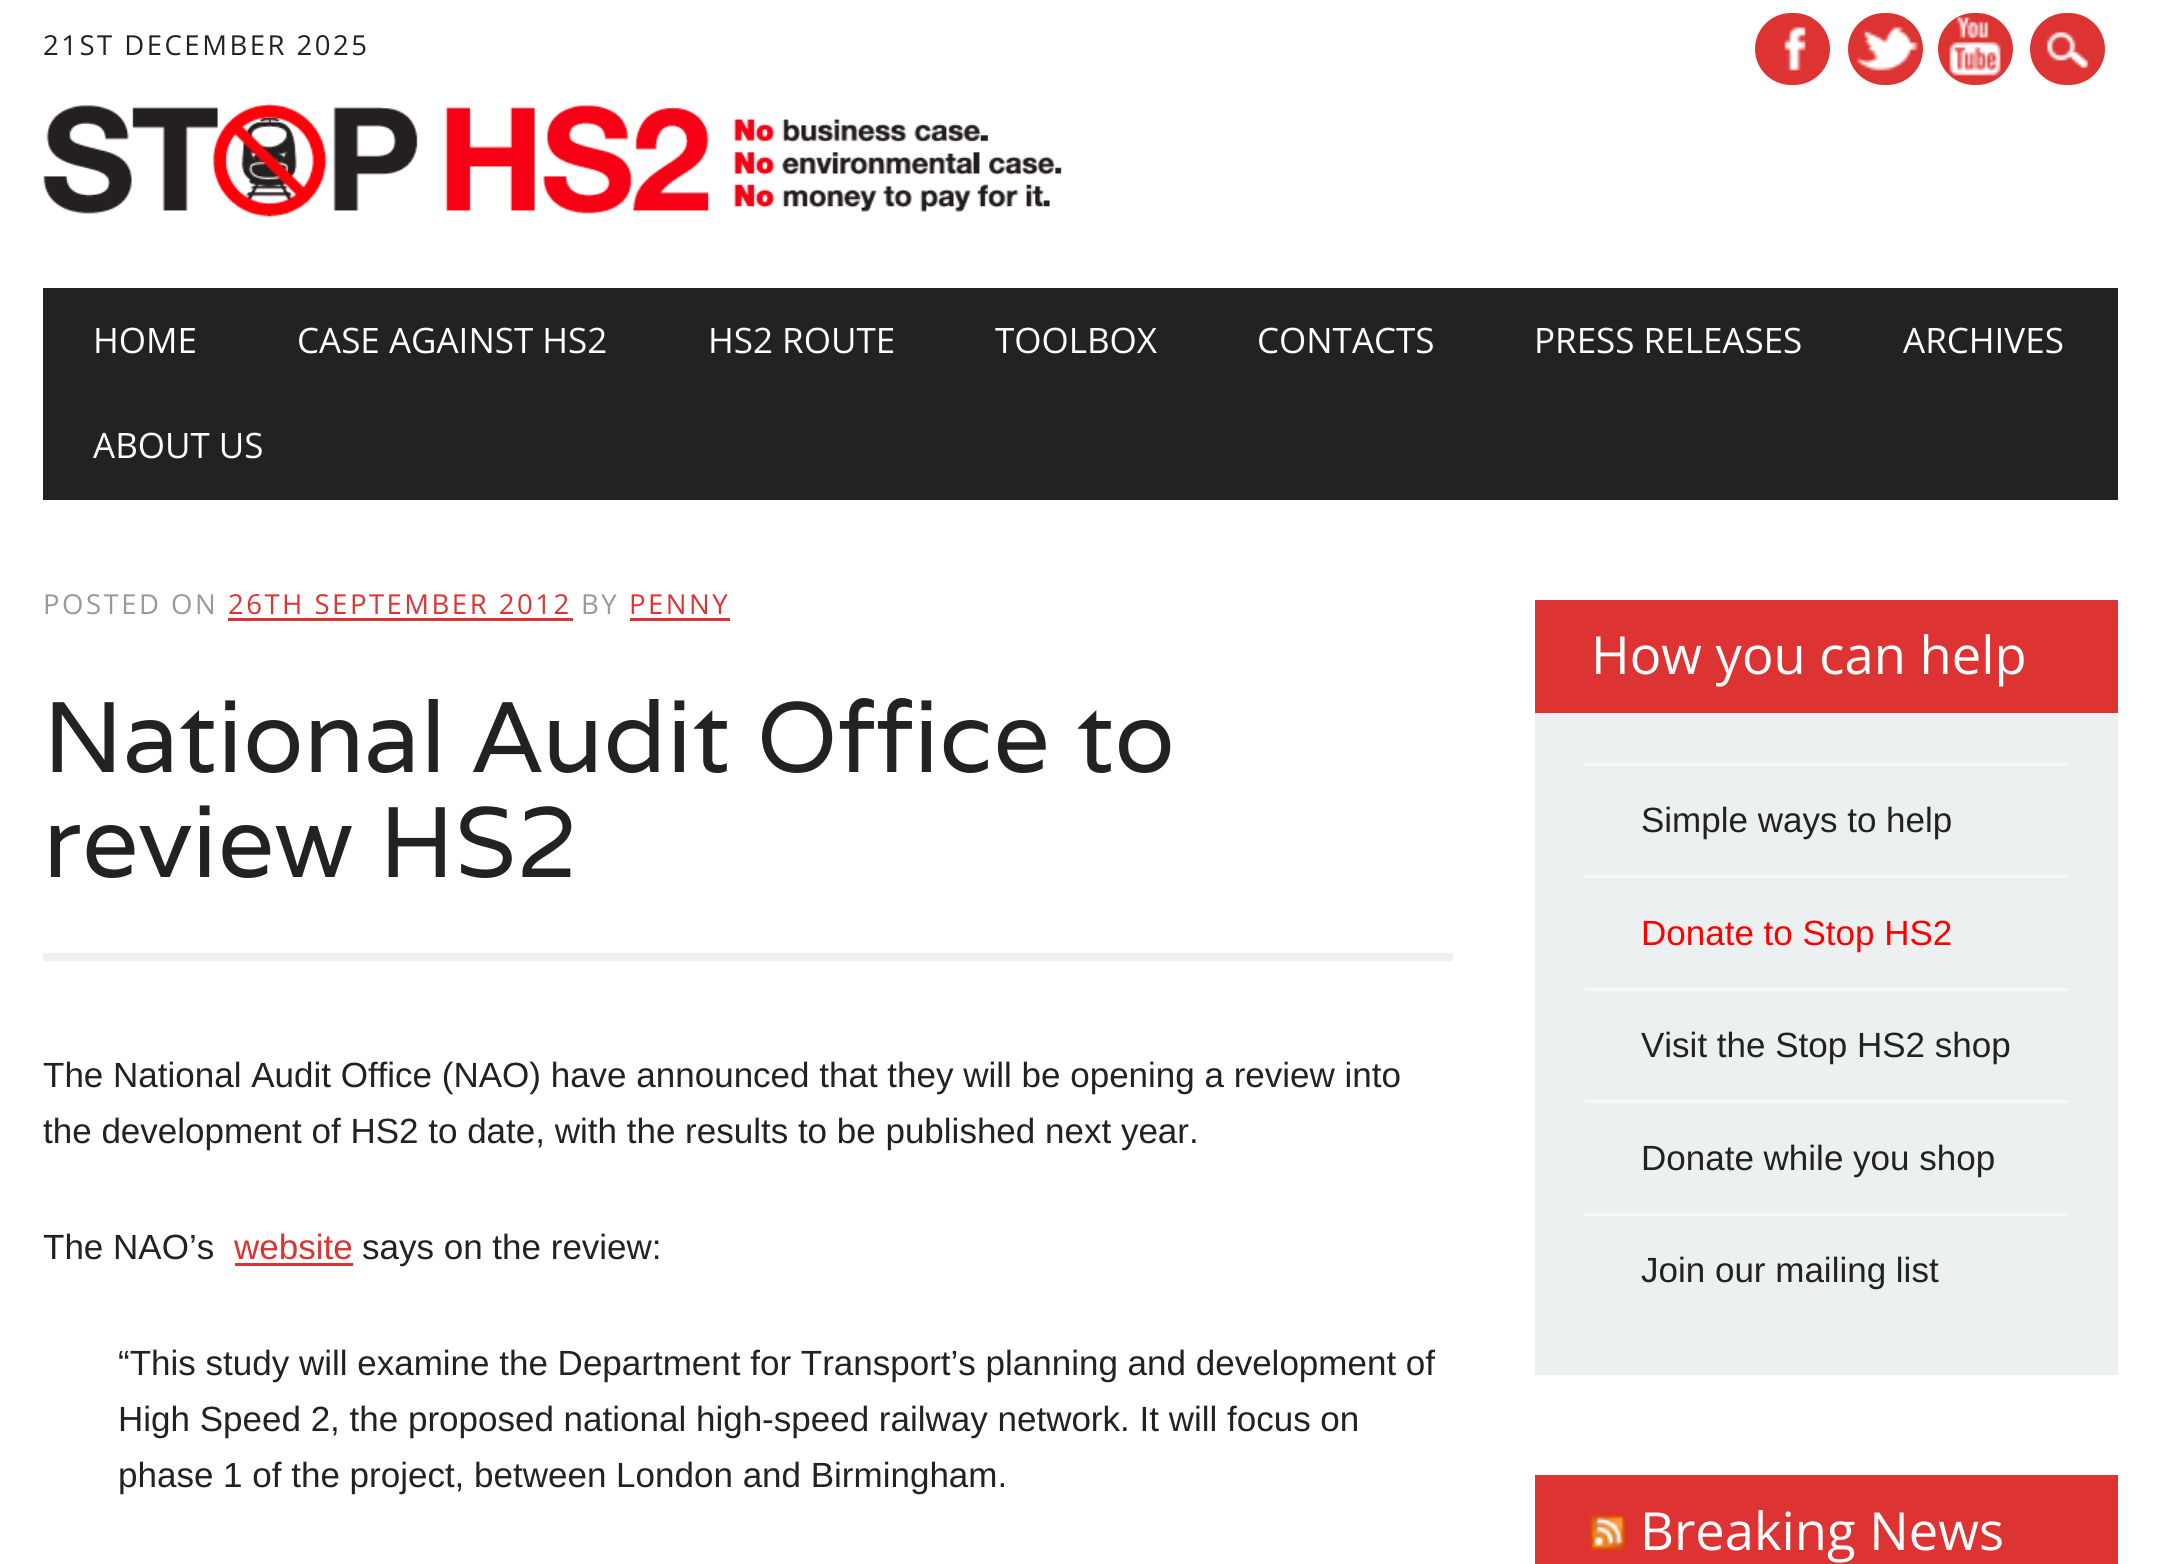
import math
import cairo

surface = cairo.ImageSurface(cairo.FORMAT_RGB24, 2158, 1564)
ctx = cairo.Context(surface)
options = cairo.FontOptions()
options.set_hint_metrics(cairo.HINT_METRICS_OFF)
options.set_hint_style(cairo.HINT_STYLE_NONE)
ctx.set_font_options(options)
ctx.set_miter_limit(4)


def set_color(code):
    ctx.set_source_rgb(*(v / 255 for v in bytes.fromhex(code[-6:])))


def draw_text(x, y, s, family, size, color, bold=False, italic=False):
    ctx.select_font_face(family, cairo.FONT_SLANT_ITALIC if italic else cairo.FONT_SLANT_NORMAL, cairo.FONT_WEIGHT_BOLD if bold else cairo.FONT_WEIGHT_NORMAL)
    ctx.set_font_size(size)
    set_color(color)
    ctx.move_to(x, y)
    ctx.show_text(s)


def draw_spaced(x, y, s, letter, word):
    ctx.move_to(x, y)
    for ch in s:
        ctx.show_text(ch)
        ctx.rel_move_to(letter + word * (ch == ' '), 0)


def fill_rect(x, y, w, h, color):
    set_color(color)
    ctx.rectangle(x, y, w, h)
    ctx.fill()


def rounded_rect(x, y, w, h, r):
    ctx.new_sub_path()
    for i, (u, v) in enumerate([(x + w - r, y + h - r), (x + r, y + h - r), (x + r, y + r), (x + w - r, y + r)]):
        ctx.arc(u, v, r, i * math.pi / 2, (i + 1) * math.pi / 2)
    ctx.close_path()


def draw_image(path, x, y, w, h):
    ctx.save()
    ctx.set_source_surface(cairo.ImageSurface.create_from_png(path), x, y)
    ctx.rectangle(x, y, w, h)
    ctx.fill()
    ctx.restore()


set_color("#ffffff")
ctx.paint()
ctx.select_font_face("Open Sans")
ctx.set_font_size(27.5)
set_color("#222222")
draw_spaced(43, 55, "21ST DECEMBER 2025", 2.5, 0)
set_color("#dd3333")
rounded_rect(1755, 13, 75, 72, 36)
ctx.fill()
draw_image("assets/img1.png", 1784, 26, 22, 45)
rounded_rect(1848, 13, 75, 72, 36)
ctx.fill()
draw_image("assets/img2.png", 1856, 26, 63, 45)
rounded_rect(1938, 13, 75, 72, 36)
ctx.fill()
draw_image("assets/img3.png", 1949, 16, 52, 60)
rounded_rect(2030, 13, 75, 72, 36)
ctx.fill()
draw_image("assets/img4.png", 2046, 31, 43, 38)
draw_image("assets/img5.png", 43, 103, 1019, 114)
fill_rect(43, 288, 2075, 212, "#222222")
draw_text(93, 353, "HOME", "Open Sans", 35, "#ffffff")
draw_text(297, 353, "CASE AGAINST HS2", "Open Sans", 35, "#ffffff")
draw_text(708, 353, "HS2 ROUTE", "Open Sans", 35, "#ffffff")
draw_text(995, 353, "TOOLBOX", "Open Sans", 35, "#ffffff")
draw_text(1257, 353, "CONTACTS", "Open Sans", 35, "#ffffff")
draw_text(1534, 353, "PRESS RELEASES", "Open Sans", 35, "#ffffff")
draw_text(1903, 353, "ARCHIVES", "Open Sans", 35, "#ffffff")
draw_text(93, 458, "ABOUT US", "Open Sans", 35, "#ffffff")
ctx.set_font_size(27.5)
set_color("#999999")
draw_spaced(43, 614, "POSTED ON", 2.5, 0)
set_color("#dd3333")
draw_spaced(228, 614, "26TH SEPTEMBER 2012", 2.5, 0)
fill_rect(228, 618, 345, 3, "#dd3333")
set_color("#999999")
draw_spaced(581, 614, "BY", 2.5, 0)
set_color("#dd3333")
draw_spaced(629, 614, "PENNY", 2.5, 0)
fill_rect(630, 618, 100, 3, "#dd3333")
fill_rect(43, 953, 1410, 8, "#ecf0f1")
draw_text(43, 772, "National Audit Office to", "Varela", 100, "#222222")
draw_text(43, 877, "review HS2", "Varela", 100, "#222222")
draw_text(43, 1087, "The National Audit Office (NAO) have announced that they will be opening a review into", "Liberation Sans", 35, "#222222")
draw_text(43, 1143, "the development of HS2 to date, with the results to be published next year.", "Liberation Sans", 35, "#222222")
draw_text(43, 1259, "The NAO’s", "Liberation Sans", 35, "#222222")
draw_text(234, 1259, "website", "Liberation Sans", 35, "#dd3333")
fill_rect(235, 1263, 118, 3, "#dd3333")
draw_text(362, 1259, "says on the review:", "Liberation Sans", 35, "#222222")
draw_text(118, 1375, "“This study will examine the Department for Transport’s planning and development of", "Liberation Sans", 35, "#222222")
draw_text(118, 1431, "High Speed 2, the proposed national high-speed railway network. It will focus on", "Liberation Sans", 35, "#222222")
draw_text(118, 1487, "phase 1 of the project, between London and Birmingham.", "Liberation Sans", 35, "#222222")
fill_rect(1535, 713, 583, 662, "#ecf0f1")
fill_rect(1535, 600, 583, 113, "#dd3333")
draw_text(1591, 674, "How you can help", "Open Sans", 52.5, "#ffffff")
fill_rect(1585, 763, 483, 3, "#f6f8f8")
draw_text(1641, 832, "Simple ways to help", "Liberation Sans", 35, "#222222")
fill_rect(1585, 875, 483, 3, "#f6f8f8")
draw_text(1641, 945, "Donate to Stop HS2", "Liberation Sans", 35, "#ff0000")
fill_rect(1585, 988, 483, 3, "#f6f8f8")
draw_text(1641, 1057, "Visit the Stop HS2 shop", "Liberation Sans", 35, "#222222")
fill_rect(1585, 1100, 483, 3, "#f6f8f8")
draw_text(1641, 1170, "Donate while you shop", "Liberation Sans", 35, "#222222")
fill_rect(1585, 1213, 483, 3, "#f6f8f8")
draw_text(1641, 1282, "Join our mailing list", "Liberation Sans", 35, "#222222")
fill_rect(1535, 1475, 583, 89, "#dd3333")
draw_image("assets/img6.png", 1590, 1515, 35, 35)
draw_text(1640, 1550, "Breaking News", "Open Sans", 52.5, "#ffffff")
surface.write_to_png("output.png")
